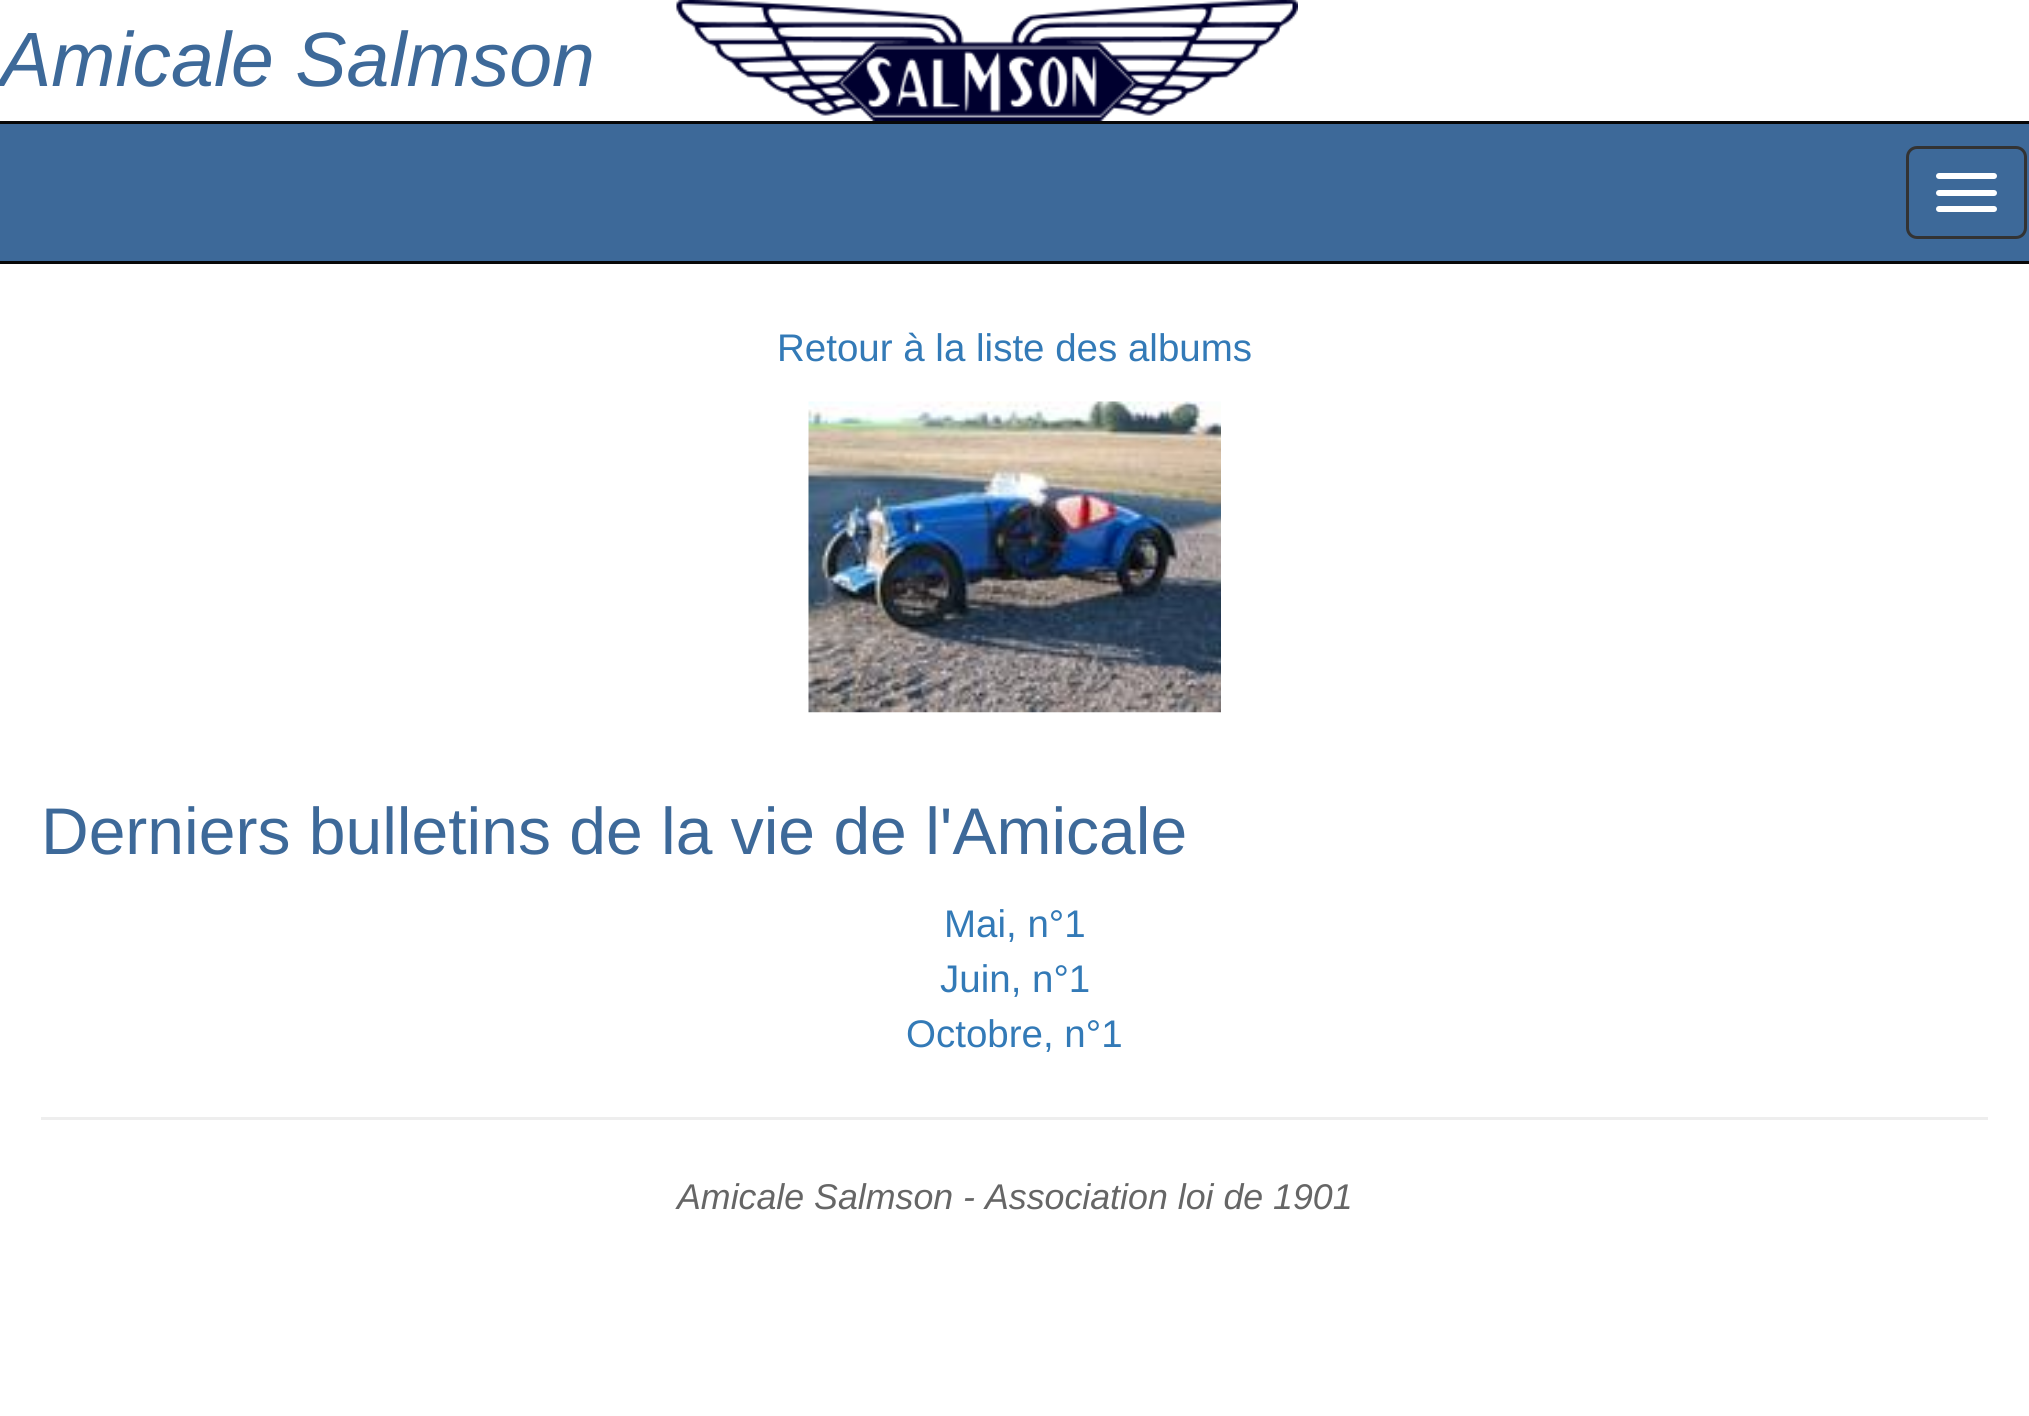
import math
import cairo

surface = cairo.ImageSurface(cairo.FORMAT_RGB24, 2029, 1416)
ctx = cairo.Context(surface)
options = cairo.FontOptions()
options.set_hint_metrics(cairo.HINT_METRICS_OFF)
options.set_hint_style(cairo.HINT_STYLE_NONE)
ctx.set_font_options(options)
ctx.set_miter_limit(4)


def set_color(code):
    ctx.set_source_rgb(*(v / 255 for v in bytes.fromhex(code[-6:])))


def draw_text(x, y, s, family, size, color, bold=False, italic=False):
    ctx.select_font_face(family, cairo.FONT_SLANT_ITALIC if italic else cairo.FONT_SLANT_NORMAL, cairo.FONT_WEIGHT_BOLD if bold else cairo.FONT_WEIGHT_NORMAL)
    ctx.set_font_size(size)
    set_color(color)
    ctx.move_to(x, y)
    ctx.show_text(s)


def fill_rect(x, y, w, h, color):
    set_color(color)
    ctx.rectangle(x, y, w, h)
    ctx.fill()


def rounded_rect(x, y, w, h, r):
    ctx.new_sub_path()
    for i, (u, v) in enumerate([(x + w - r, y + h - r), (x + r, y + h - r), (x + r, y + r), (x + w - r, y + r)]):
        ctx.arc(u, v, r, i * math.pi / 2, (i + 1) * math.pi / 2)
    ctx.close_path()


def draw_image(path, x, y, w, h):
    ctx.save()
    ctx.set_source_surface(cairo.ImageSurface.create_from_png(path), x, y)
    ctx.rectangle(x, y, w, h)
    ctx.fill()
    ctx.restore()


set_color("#ffffff")
ctx.paint()
draw_text(0, 86, "Amicale Salmson", "Liberation Sans", 77, "#3d6999", italic=True)
draw_image("assets/img1.png", 676, 0, 622, 121)
ctx.rectangle(-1.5, 122.5, 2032, 140)
set_color("#080808")
ctx.set_line_width(3)
ctx.stroke()
fill_rect(0, 124, 2029, 137, "#3d6999")
rounded_rect(1907.5, 147.5, 118, 90, 9.5)
set_color("#333333")
ctx.stroke()
set_color("#ffffff")
rounded_rect(1936, 173, 61, 6, 3)
ctx.fill()
rounded_rect(1936, 190, 61, 6, 3)
ctx.fill()
rounded_rect(1936, 206, 61, 6, 3)
ctx.fill()
draw_text(777, 361, "Retour à la liste des albums", "Liberation Sans", 38.5, "#337ab7")
draw_image("assets/img2.png", 808, 401, 413, 312)
draw_text(41, 854, "Derniers bulletins de la vie de l'Amicale", "Liberation Sans", 66, "#3d6999")
draw_text(944, 937, "Mai, n°1", "Liberation Sans", 38.5, "#337ab7")
draw_text(940, 992, "Juin, n°1", "Liberation Sans", 38.5, "#337ab7")
draw_text(906, 1047, "Octobre, n°1", "Liberation Sans", 38.5, "#337ab7")
fill_rect(41, 1117, 1947, 3, "#eeeeee")
draw_text(677, 1209, "Amicale Salmson - Association loi de 1901", "Liberation Sans", 35.75, "#666666", italic=True)
surface.write_to_png("output.png")
